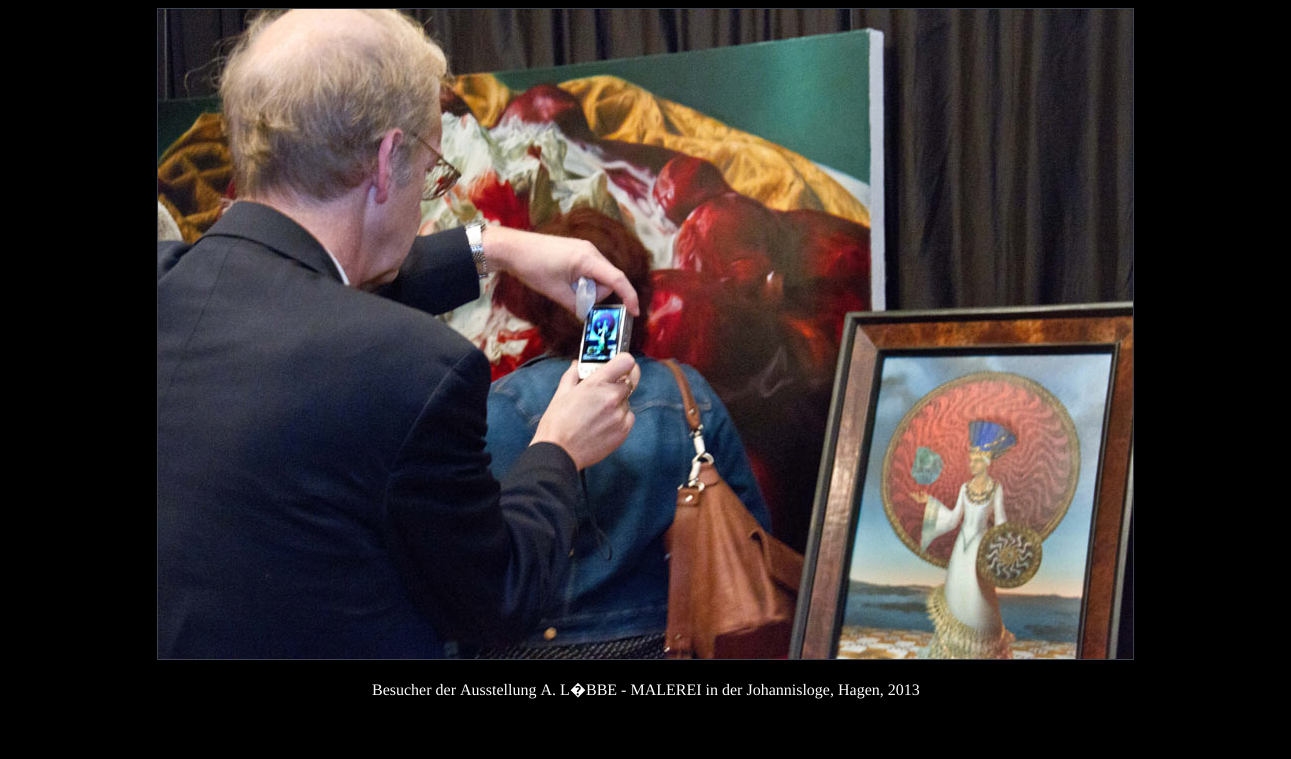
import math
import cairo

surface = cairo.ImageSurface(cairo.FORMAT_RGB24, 1291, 759)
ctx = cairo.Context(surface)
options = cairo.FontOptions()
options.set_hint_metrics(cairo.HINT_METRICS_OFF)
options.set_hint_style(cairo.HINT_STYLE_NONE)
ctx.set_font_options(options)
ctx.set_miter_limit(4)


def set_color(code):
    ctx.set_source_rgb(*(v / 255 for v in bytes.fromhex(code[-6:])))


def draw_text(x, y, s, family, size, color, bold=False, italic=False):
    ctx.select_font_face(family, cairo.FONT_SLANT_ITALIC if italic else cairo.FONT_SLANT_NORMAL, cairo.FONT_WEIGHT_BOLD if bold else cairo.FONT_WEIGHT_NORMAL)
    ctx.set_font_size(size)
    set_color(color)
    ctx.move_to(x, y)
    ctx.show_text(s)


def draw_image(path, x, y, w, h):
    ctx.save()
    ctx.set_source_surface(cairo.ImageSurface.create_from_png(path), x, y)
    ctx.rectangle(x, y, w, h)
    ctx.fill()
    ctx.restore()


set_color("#000000")
ctx.paint()
ctx.rectangle(157.5, 8.5, 976, 651)
set_color("#3c4451")
ctx.set_line_width(1)
ctx.stroke()
draw_image("assets/img1.png", 158, 9, 975, 650)
draw_text(372, 695, "Besucher der Ausstellung A. L", "Liberation Serif", 16, "#ffffff")
draw_text(570, 695, "�", "Noto Sans", 16, "#ffffff")
draw_text(586, 695, "BBE - MALEREI in der Johannisloge, Hagen, 2013", "Liberation Serif", 16, "#ffffff")
surface.write_to_png("output.png")
